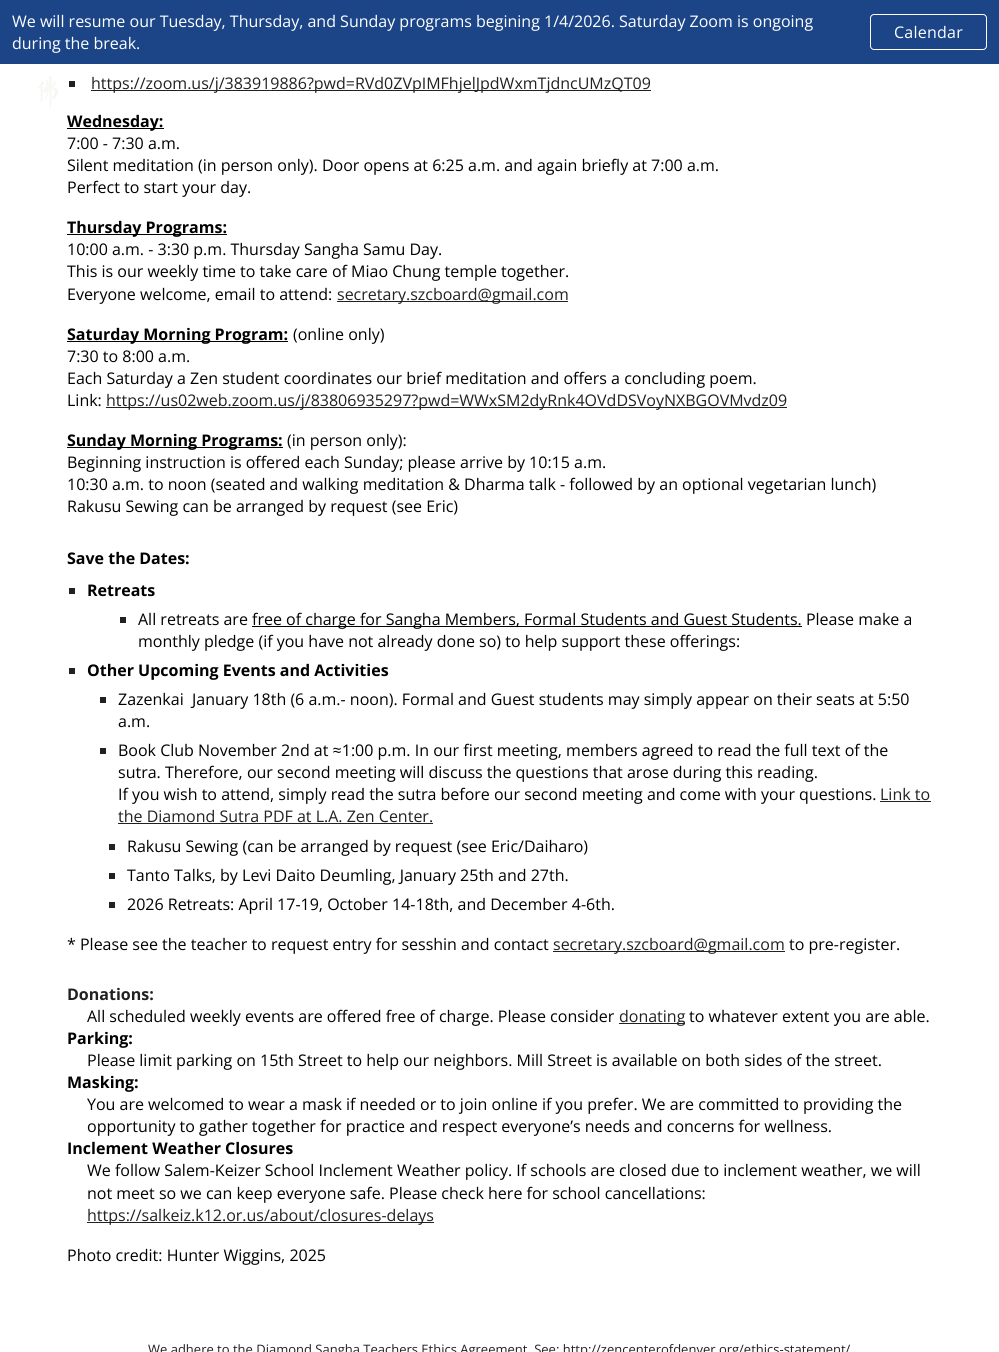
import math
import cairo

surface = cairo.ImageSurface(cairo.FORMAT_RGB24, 999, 1352)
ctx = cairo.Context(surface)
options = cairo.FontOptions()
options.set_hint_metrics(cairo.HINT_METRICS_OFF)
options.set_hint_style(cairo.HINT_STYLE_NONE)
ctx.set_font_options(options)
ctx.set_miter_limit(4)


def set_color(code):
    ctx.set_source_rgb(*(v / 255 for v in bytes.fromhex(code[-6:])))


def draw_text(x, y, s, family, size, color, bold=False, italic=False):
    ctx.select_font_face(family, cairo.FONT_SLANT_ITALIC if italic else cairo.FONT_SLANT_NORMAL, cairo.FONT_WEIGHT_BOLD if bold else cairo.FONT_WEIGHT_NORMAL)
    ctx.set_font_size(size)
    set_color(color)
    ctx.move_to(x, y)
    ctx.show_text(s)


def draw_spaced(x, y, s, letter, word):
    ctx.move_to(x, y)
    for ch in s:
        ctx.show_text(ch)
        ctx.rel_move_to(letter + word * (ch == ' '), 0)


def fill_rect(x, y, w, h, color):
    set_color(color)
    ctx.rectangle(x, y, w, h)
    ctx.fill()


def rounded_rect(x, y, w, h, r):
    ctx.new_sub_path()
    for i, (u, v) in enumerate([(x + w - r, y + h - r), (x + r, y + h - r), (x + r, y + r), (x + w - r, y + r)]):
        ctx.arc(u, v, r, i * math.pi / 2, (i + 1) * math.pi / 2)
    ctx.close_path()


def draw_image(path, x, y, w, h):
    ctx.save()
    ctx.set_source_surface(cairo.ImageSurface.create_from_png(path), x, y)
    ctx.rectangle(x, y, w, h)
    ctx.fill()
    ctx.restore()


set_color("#ffffff")
ctx.paint()
fill_rect(0, 0, 999, 64, "#1c4587")
draw_text(12, 27, "We will resume our Tuesday, Thursday, and Sunday programs begining 1/4/2026. Saturday Zoom is ongoing", "Open Sans", 16, "#ffffff")
draw_text(12, 49, "during the break.", "Open Sans", 16, "#ffffff")
rounded_rect(870.5, 14.5, 116, 35, 3.5)
ctx.set_line_width(1)
ctx.stroke()
draw_spaced(894, 38, "Calendar", 0.25, 0)
draw_image("assets/img1.png", 36, 76, 22, 32)
fill_rect(69, 81, 6, 6, "#212121")
fill_rect(91, 90, 560, 1, "#212121")
draw_text(91, 89, "https://zoom.us/j/383919886?pwd=RVd0ZVpIMFhjelJpdWxmTjdncUMzQT09", "Open Sans", 16, "#212121")
fill_rect(67, 128, 97, 1, "#000000")
draw_text(67, 127, "Wednesday:", "Open Sans", 16, "#000000", bold=True)
draw_text(67, 149, "7:00 - 7:30 a.m.", "Open Sans", 16, "#000000")
draw_text(67, 171, "Silent meditation (in person only). Door opens at 6:25 a.m. and again briefly at 7:00 a.m.", "Open Sans", 16, "#000000")
draw_text(67, 193, "Perfect to start your day.", "Open Sans", 16, "#000000")
fill_rect(67, 234, 160, 1, "#000000")
draw_text(67, 233, "Thursday Programs:", "Open Sans", 16, "#000000", bold=True)
draw_text(67, 255, "10:00 a.m. - 3:30 p.m. Thursday Sangha Samu Day.", "Open Sans", 16, "#000000")
draw_text(67, 277, "This is our weekly time to take care of Miao Chung temple together.", "Open Sans", 16, "#000000")
draw_text(67, 300, "Everyone welcome, email to attend:", "Open Sans", 16, "#000000")
fill_rect(337, 301, 231, 1, "#212121")
draw_text(337, 300, "secretary.szcboard@gmail.com", "Open Sans", 16, "#212121")
fill_rect(67, 341, 221, 1, "#000000")
draw_text(67, 340, "Saturday Morning Program:", "Open Sans", 16, "#000000", bold=True)
draw_text(293, 340, "(online only)", "Open Sans", 16, "#000000")
draw_text(67, 362, "7:30 to 8:00 a.m.", "Open Sans", 16, "#000000")
draw_text(67, 384, "Each Saturday a Zen student coordinates our brief meditation and offers a concluding poem.", "Open Sans", 16, "#000000")
draw_text(67, 406, "Link:", "Open Sans", 16, "#000000")
fill_rect(106, 407, 681, 1, "#212121")
draw_text(106, 406, "https://us02web.zoom.us/j/83806935297?pwd=WWxSM2dyRnk4OVdDSVoyNXBGOVMvdz09", "Open Sans", 16, "#212121")
fill_rect(67, 447, 216, 1, "#000000")
draw_text(67, 446, "Sunday Morning Programs:", "Open Sans", 16, "#000000", bold=True)
draw_text(287, 446, "(in person only):", "Open Sans", 16, "#000000")
draw_text(67, 468, "Beginning instruction is offered each Sunday; please arrive by 10:15 a.m.", "Open Sans", 16, "#000000")
draw_text(67, 490, "10:30 a.m. to noon (seated and walking meditation & Dharma talk - followed by an optional vegetarian lunch)", "Open Sans", 16, "#000000")
draw_text(67, 512, "Rakusu Sewing can be arranged by request (see Eric)", "Open Sans", 16, "#000000")
draw_text(67, 564, "Save the Dates:", "Open Sans", 16, "#000000", bold=True)
fill_rect(69, 588, 6, 6, "#212121")
draw_text(87, 596, "Retreats", "Open Sans", 16, "#000000", bold=True)
fill_rect(120, 617, 6, 6, "#212121")
draw_text(138, 625, "All retreats are", "Open Sans", 16, "#000000")
fill_rect(252, 626, 550, 1, "#000000")
draw_text(252, 625, "free of charge for Sangha Members, Formal Students and Guest Students. Please make a", "Open Sans", 16, "#000000")
draw_text(138, 647, "monthly pledge (if you have not already done so) to help support these offerings:", "Open Sans", 16, "#000000")
fill_rect(69, 668, 6, 6, "#212121")
draw_text(87, 676, "Other Upcoming Events and Activities", "Open Sans", 16, "#000000", bold=True)
fill_rect(100, 697, 6, 6, "#212121")
draw_text(118, 705, "Zazenkai  January 18th (6 a.m.- noon). Formal and Guest students may simply appear on their seats at 5:50", "Open Sans", 16, "#000000")
draw_text(118, 727, "a.m.", "Open Sans", 16, "#000000")
fill_rect(100, 748, 6, 6, "#212121")
draw_text(118, 756, "Book Club November 2nd at ≈1:00 p.m. In our first meeting, members agreed to read the full text of the", "Open Sans", 16, "#000000")
draw_text(118, 778, "sutra. Therefore, our second meeting will discuss the questions that arose during this reading.", "Open Sans", 16, "#000000")
draw_text(118, 800, "If you wish to attend, simply read the sutra before our second meeting and come with your questions.", "Open Sans", 16, "#000000")
draw_text(880, 800, "Link to", "Open Sans", 16, "#212121")
fill_rect(880, 801, 51, 1, "#212121")
draw_text(118, 822, "the Diamond Sutra PDF at L.A. Zen Center.", "Open Sans", 16, "#212121")
fill_rect(118, 823, 315, 1, "#212121")
fill_rect(109, 844, 6, 6, "#212121")
draw_text(127, 852, "Rakusu Sewing (can be arranged by request (see Eric/Daiharo)", "Open Sans", 16, "#000000")
fill_rect(109, 873, 6, 6, "#212121")
draw_text(127, 881, "Tanto Talks, by Levi Daito Deumling, January 25th and 27th.", "Open Sans", 16, "#000000")
fill_rect(109, 902, 6, 6, "#212121")
draw_text(127, 910, "2026 Retreats: April 17-19, October 14-18th, and December 4-6th.", "Open Sans", 16, "#000000")
draw_text(67, 950, "* Please see the teacher to request entry for sesshin and contact", "Open Sans", 16, "#000000")
fill_rect(553, 951, 232, 1, "#212121")
draw_text(553, 950, "secretary.szcboard@gmail.com", "Open Sans", 16, "#212121")
draw_text(789, 950, "to pre-register.", "Open Sans", 16, "#000000")
draw_text(67, 1000, "Donations:", "Open Sans", 16, "#212121", bold=True)
draw_text(87, 1022, "All scheduled weekly events are offered free of charge. Please consider", "Open Sans", 16, "#000000")
fill_rect(619, 1023, 66, 1, "#212121")
draw_text(619, 1022, "donating", "Open Sans", 16, "#212121")
draw_text(689, 1022, "to whatever extent you are able.", "Open Sans", 16, "#000000")
draw_text(67, 1044, "Parking:", "Open Sans", 16, "#000000", bold=True)
draw_text(87, 1066, "Please limit parking on 15th Street to help our neighbors. Mill Street is available on both sides of the street.", "Open Sans", 16, "#000000")
draw_text(67, 1088, "Masking:", "Open Sans", 16, "#000000", bold=True)
draw_text(87, 1110, "You are welcomed to wear a mask if needed or to join online if you prefer. We are committed to providing the", "Open Sans", 16, "#000000")
draw_text(87, 1132, "opportunity to gather together for practice and respect everyone’s needs and concerns for wellness.", "Open Sans", 16, "#000000")
draw_text(67, 1154, "Inclement Weather Closures", "Open Sans", 16, "#000000", bold=True)
draw_text(87, 1176, "We follow Salem-Keizer School Inclement Weather policy. If schools are closed due to inclement weather, we will", "Open Sans", 16, "#000000")
draw_text(87, 1199, "not meet so we can keep everyone safe. Please check here for school cancellations:", "Open Sans", 16, "#000000")
fill_rect(87, 1222, 347, 1, "#212121")
draw_text(87, 1221, "https://salkeiz.k12.or.us/about/closures-delays", "Open Sans", 16, "#212121")
draw_text(67, 1261, "Photo credit: Hunter Wiggins, 2025", "Open Sans", 16, "#000000")
draw_text(148, 1354, "We adhere to the Diamond Sangha Teachers Ethics Agreement. See: http://zencenterofdenver.org/ethics-statement/", "Open Sans", 13, "#212121")
surface.write_to_png("output.png")
